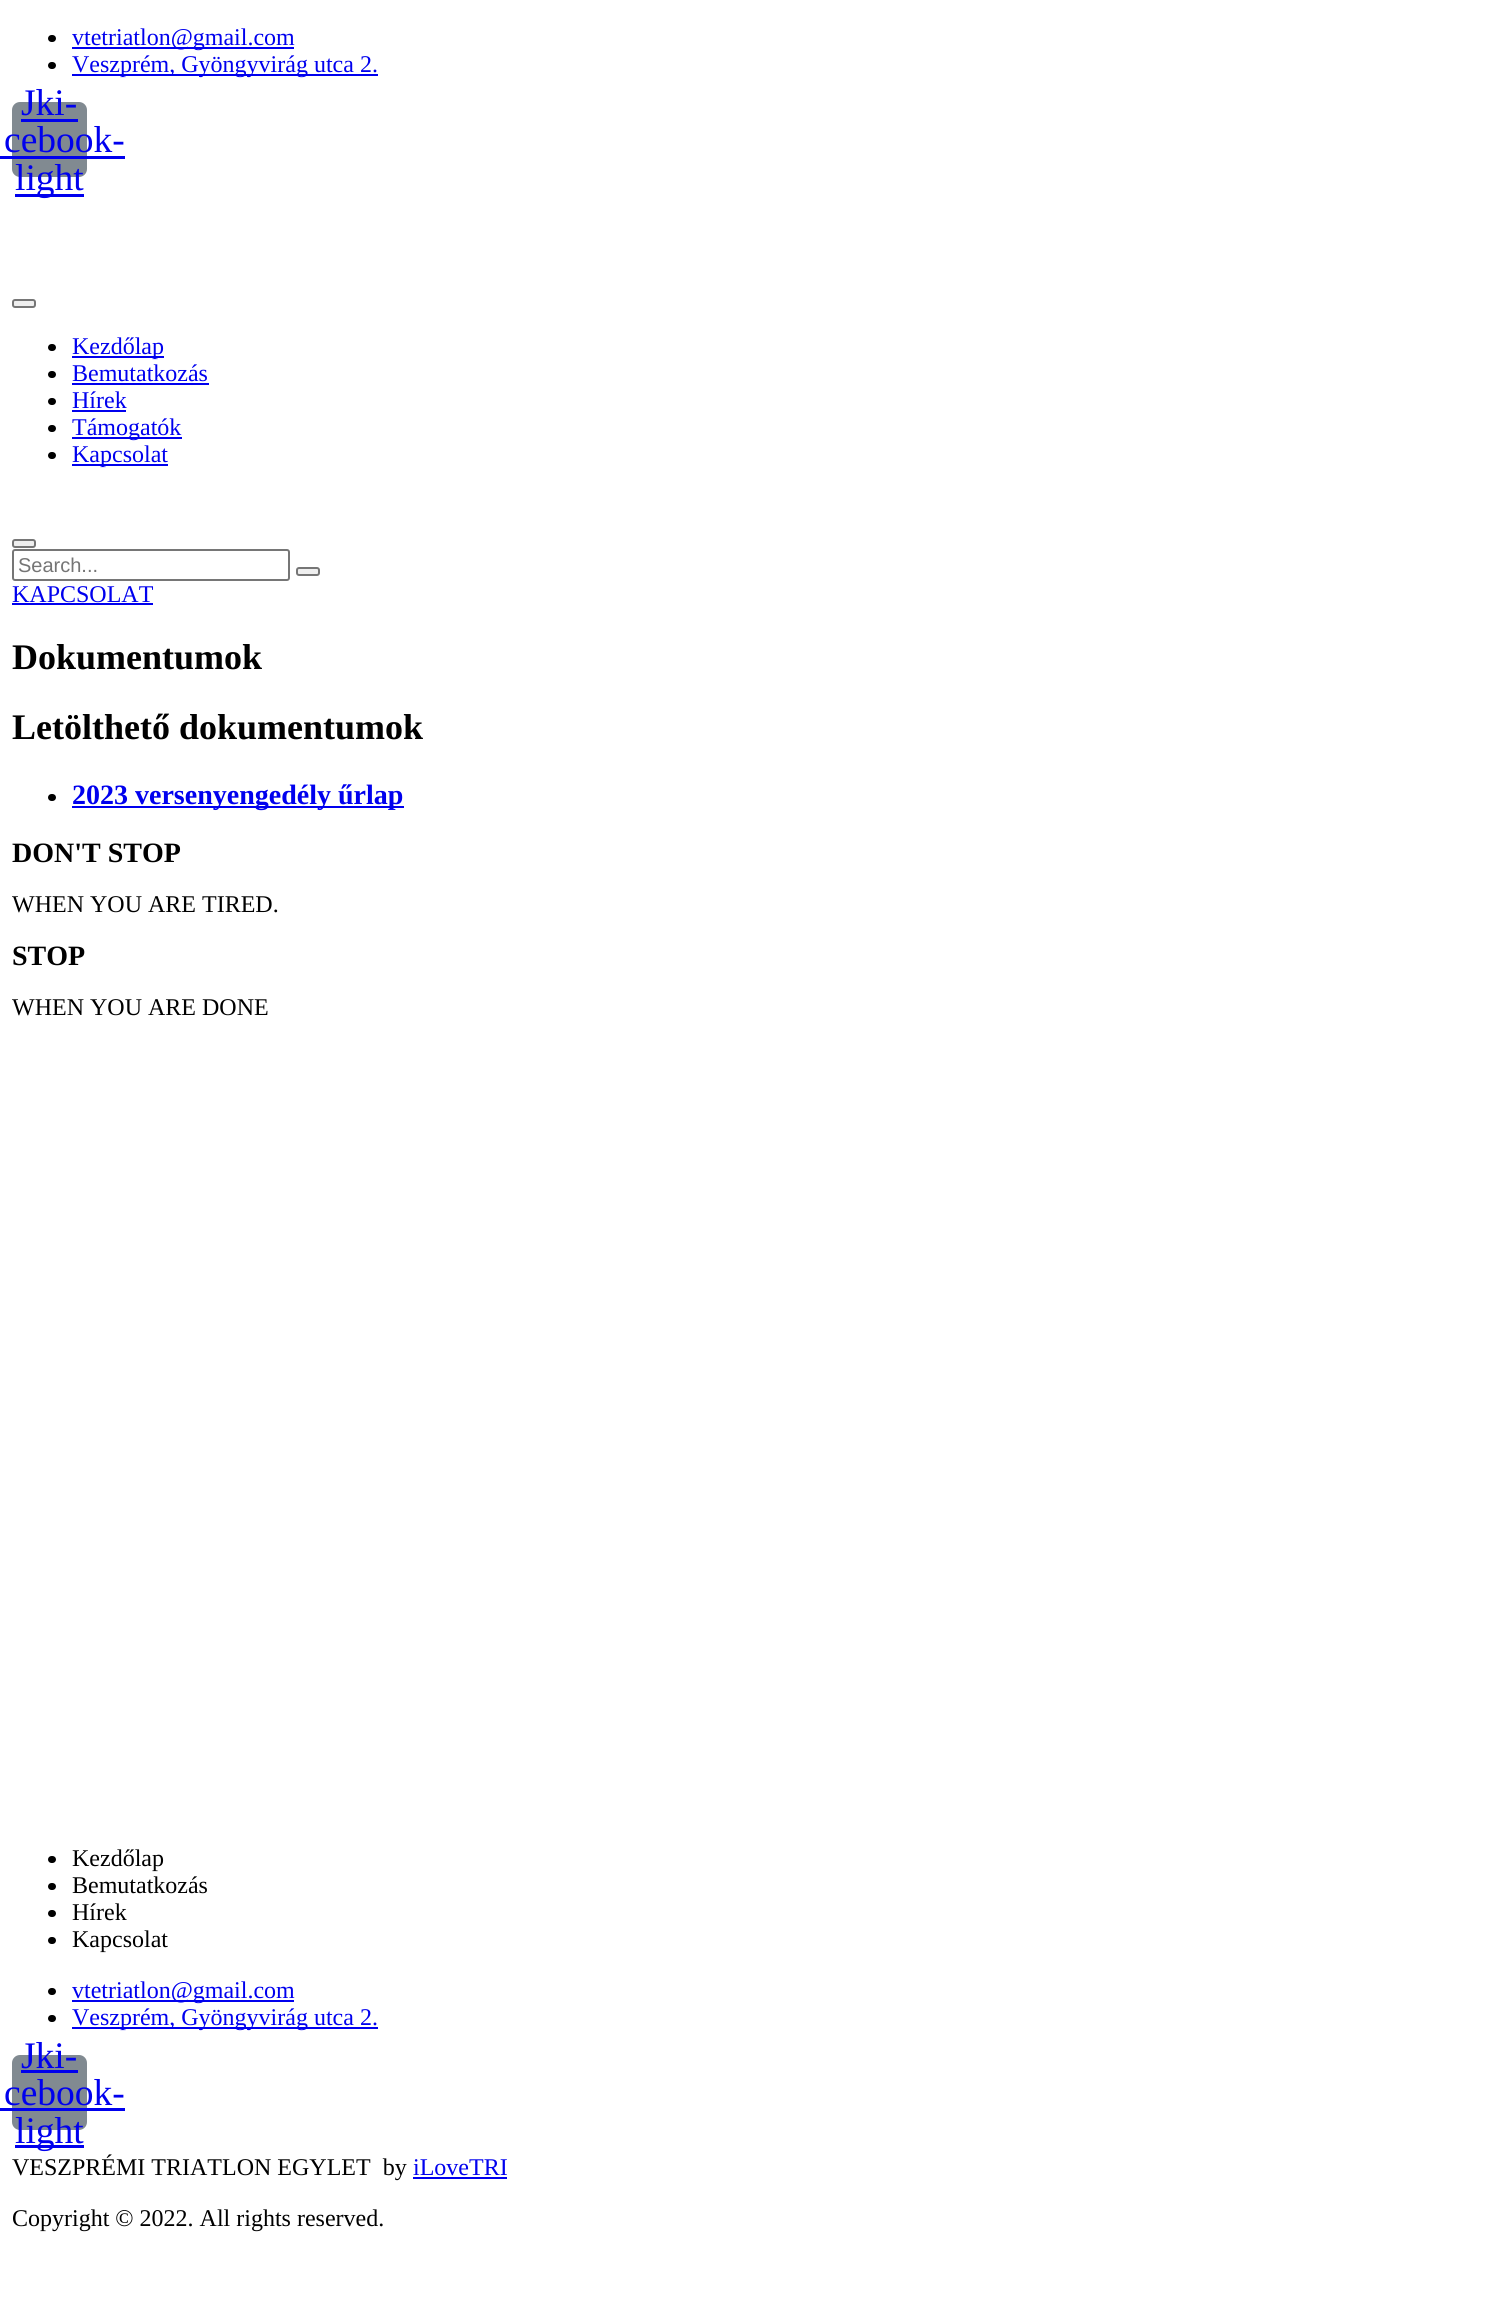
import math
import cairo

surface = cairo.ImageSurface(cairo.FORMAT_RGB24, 1505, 2312)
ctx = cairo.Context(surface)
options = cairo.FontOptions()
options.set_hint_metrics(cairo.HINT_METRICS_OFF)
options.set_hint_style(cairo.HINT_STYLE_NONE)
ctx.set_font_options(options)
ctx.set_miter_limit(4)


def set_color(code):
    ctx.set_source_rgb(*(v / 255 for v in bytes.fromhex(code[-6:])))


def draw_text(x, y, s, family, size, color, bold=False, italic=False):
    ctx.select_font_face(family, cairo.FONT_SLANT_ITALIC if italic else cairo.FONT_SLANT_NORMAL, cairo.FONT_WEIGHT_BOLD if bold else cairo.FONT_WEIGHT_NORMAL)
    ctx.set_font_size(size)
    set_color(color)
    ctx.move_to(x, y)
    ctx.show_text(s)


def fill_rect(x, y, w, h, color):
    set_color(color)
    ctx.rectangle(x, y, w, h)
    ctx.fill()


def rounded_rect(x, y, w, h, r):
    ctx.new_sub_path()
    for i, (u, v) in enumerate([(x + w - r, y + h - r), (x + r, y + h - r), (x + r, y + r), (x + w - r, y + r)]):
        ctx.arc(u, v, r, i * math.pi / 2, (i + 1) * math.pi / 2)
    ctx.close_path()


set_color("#ffffff")
ctx.paint()
set_color("#000000")
rounded_rect(48, 35, 8, 7, 3.5)
ctx.fill()
fill_rect(72, 47, 222, 2, "#0000ee")
draw_text(72, 45, "vtetriatlon@gmail.com", "Liberation Serif", 24, "#0000ee")
set_color("#000000")
rounded_rect(48, 62, 8, 7, 3.5)
ctx.fill()
fill_rect(72, 74, 306, 2, "#0000ee")
draw_text(72, 72, "Veszprém, Gyöngyvirág utca 2.", "Liberation Serif", 24, "#0000ee")
set_color("#818a91")
rounded_rect(12, 102, 75, 75, 8)
ctx.fill()
draw_text(21, 115, "Jki-", "Liberation Serif", 37.5, "#0000ee")
fill_rect(21, 119, 57, 3, "#0000ee")
draw_text(4, 152, "cebook-", "Liberation Serif", 37.5, "#0000ee")
fill_rect(0, 156, 125, 3, "#0000ee")
fill_rect(15, 194, 69, 3, "#0000ee")
draw_text(15, 190, "light", "Liberation Serif", 37.5, "#0000ee")
set_color("#efefef")
rounded_rect(13, 300, 22, 7, 2)
ctx.fill_preserve()
set_color("#767676")
ctx.stroke()
set_color("#000000")
rounded_rect(48, 344, 8, 7, 3.5)
ctx.fill()
fill_rect(72, 356, 92, 2, "#0000ee")
draw_text(72, 354, "Kezdőlap", "Liberation Serif", 24, "#0000ee")
set_color("#000000")
rounded_rect(48, 371, 8, 7, 3.5)
ctx.fill()
draw_text(72, 381, "Bemutatkozás", "Liberation Serif", 24, "#0000ee")
fill_rect(72, 383, 137, 2, "#0000ee")
set_color("#000000")
rounded_rect(48, 398, 8, 7, 3.5)
ctx.fill()
draw_text(72, 408, "Hírek", "Liberation Serif", 24, "#0000ee")
fill_rect(72, 410, 54, 2, "#0000ee")
set_color("#000000")
rounded_rect(48, 425, 8, 7, 3.5)
ctx.fill()
fill_rect(72, 437, 110, 2, "#0000ee")
draw_text(72, 435, "Támogatók", "Liberation Serif", 24, "#0000ee")
set_color("#000000")
rounded_rect(48, 452, 8, 7, 3.5)
ctx.fill()
fill_rect(72, 464, 96, 2, "#0000ee")
draw_text(72, 462, "Kapcsolat", "Liberation Serif", 24, "#0000ee")
set_color("#efefef")
rounded_rect(13, 540, 22, 7, 2)
ctx.fill_preserve()
set_color("#767676")
ctx.stroke()
rounded_rect(13, 550, 276, 30, 2)
ctx.stroke()
draw_text(18, 572, "Search...", "Liberation Sans", 20, "#757575")
set_color("#efefef")
rounded_rect(297, 568, 22, 7, 2)
ctx.fill_preserve()
set_color("#767676")
ctx.stroke()
draw_text(12, 602, "KAPCSOLAT", "Liberation Serif", 24, "#0000ee")
fill_rect(12, 603, 141, 2, "#0000ee")
draw_text(12, 669, "Dokumentumok", "Liberation Serif", 36, "#000000", bold=True)
draw_text(12, 739, "Letölthető dokumentumok", "Liberation Serif", 36, "#000000", bold=True)
rounded_rect(48, 794, 8, 7, 3.5)
ctx.fill()
fill_rect(72, 806, 332, 2, "#0000ee")
draw_text(72, 804, "2023 versenyengedély űrlap", "Liberation Serif", 28, "#0000ee", bold=True)
draw_text(12, 862, "DON'T STOP", "Liberation Serif", 28, "#000000", bold=True)
draw_text(12, 912, "WHEN YOU ARE TIRED.", "Liberation Serif", 24, "#000000")
draw_text(12, 965, "STOP", "Liberation Serif", 28, "#000000", bold=True)
draw_text(12, 1015, "WHEN YOU ARE DONE", "Liberation Serif", 24, "#000000")
rounded_rect(48, 1856, 8, 7, 3.5)
ctx.fill()
draw_text(72, 1866, "Kezdőlap", "Liberation Serif", 24, "#000000")
rounded_rect(48, 1883, 8, 7, 3.5)
ctx.fill()
draw_text(72, 1893, "Bemutatkozás", "Liberation Serif", 24, "#000000")
rounded_rect(48, 1910, 8, 7, 3.5)
ctx.fill()
draw_text(72, 1920, "Hírek", "Liberation Serif", 24, "#000000")
rounded_rect(48, 1937, 8, 7, 3.5)
ctx.fill()
draw_text(72, 1947, "Kapcsolat", "Liberation Serif", 24, "#000000")
rounded_rect(48, 1988, 8, 7, 3.5)
ctx.fill()
fill_rect(72, 2000, 222, 2, "#0000ee")
draw_text(72, 1998, "vtetriatlon@gmail.com", "Liberation Serif", 24, "#0000ee")
set_color("#000000")
rounded_rect(48, 2015, 8, 7, 3.5)
ctx.fill()
fill_rect(72, 2027, 306, 2, "#0000ee")
draw_text(72, 2025, "Veszprém, Gyöngyvirág utca 2.", "Liberation Serif", 24, "#0000ee")
set_color("#818a91")
rounded_rect(12, 2055, 75, 75, 8)
ctx.fill()
draw_text(21, 2068, "Jki-", "Liberation Serif", 37.5, "#0000ee")
fill_rect(21, 2070, 57, 3, "#0000ee")
draw_text(4, 2105, "cebook-", "Liberation Serif", 37.5, "#0000ee")
fill_rect(0, 2108, 125, 3, "#0000ee")
fill_rect(15, 2145, 69, 3, "#0000ee")
draw_text(15, 2143, "light", "Liberation Serif", 37.5, "#0000ee")
draw_text(12, 2175, "VESZPRÉMI TRIATLON EGYLET  by", "Liberation Serif", 24, "#000000")
draw_text(413, 2175, "iLoveTRI", "Liberation Serif", 24, "#0000ee")
fill_rect(413, 2177, 94, 2, "#0000ee")
draw_text(12, 2226, "Copyright © 2022. All rights reserved.", "Liberation Serif", 24, "#000000")
surface.write_to_png("output.png")
